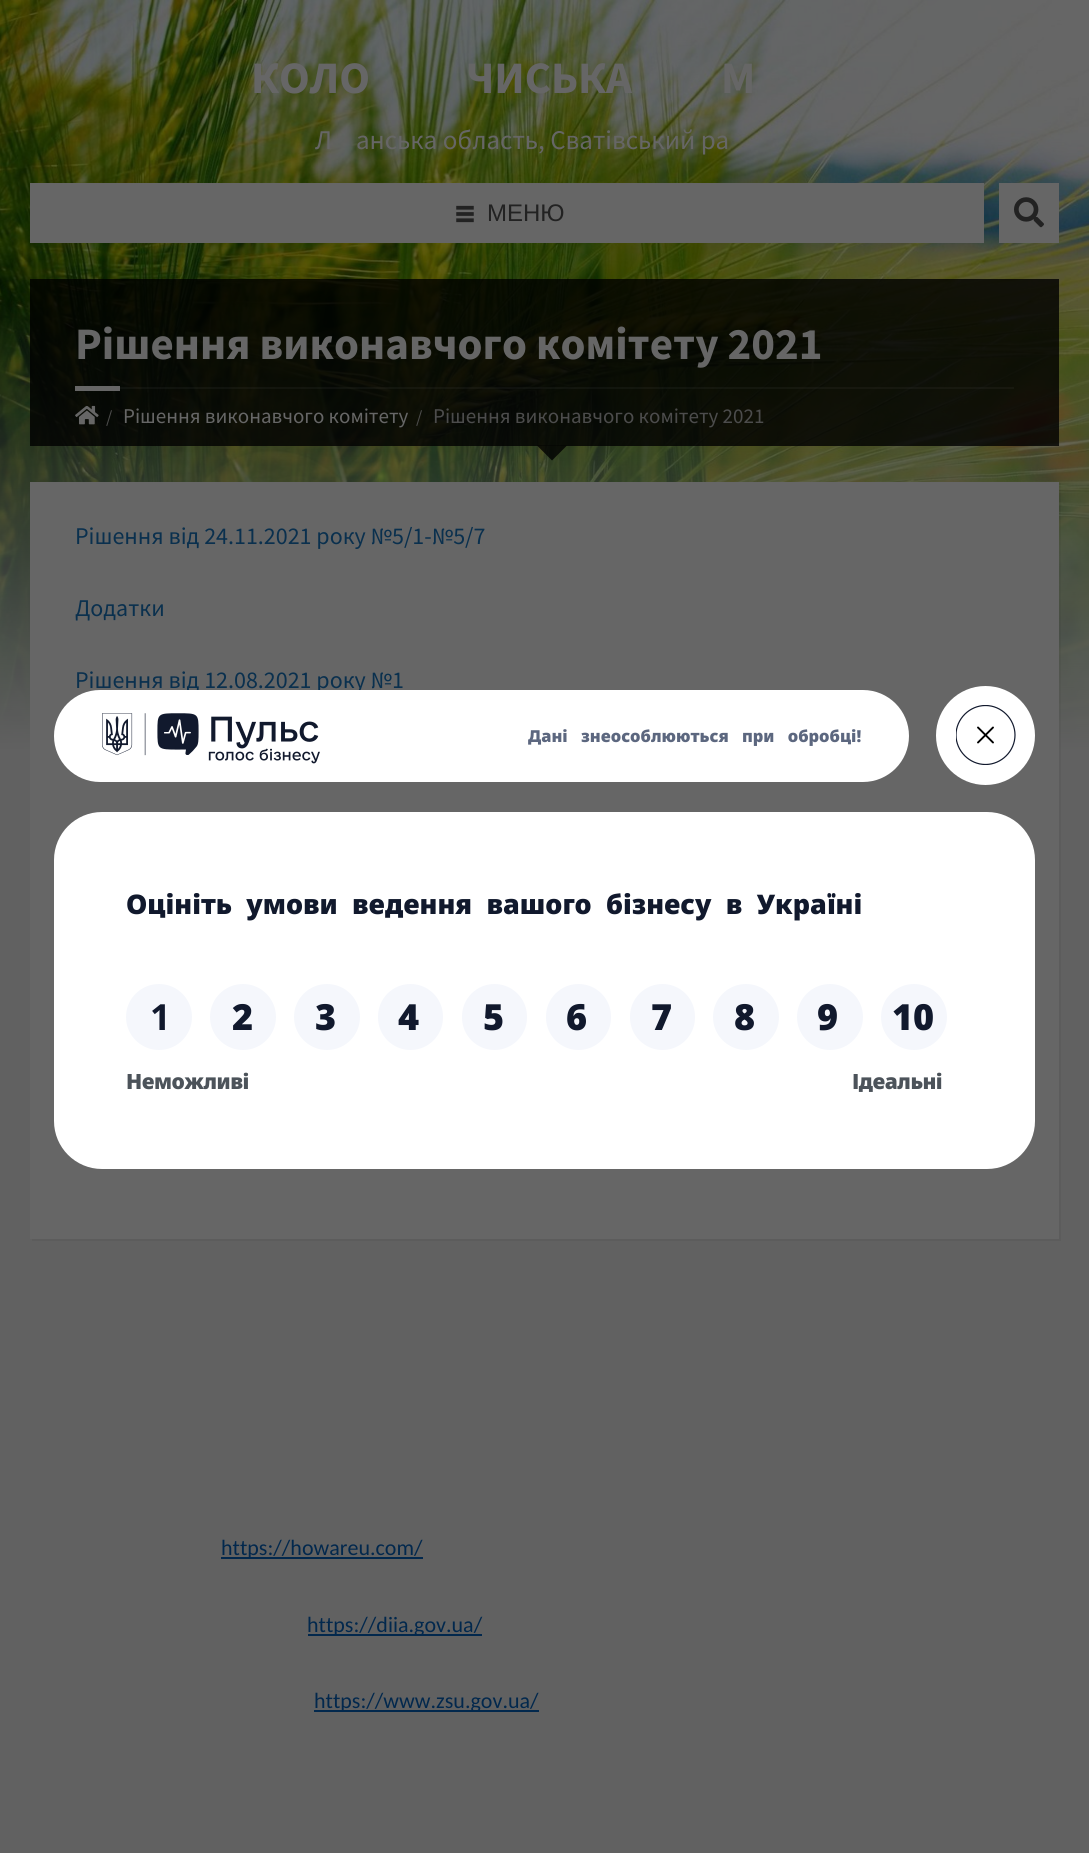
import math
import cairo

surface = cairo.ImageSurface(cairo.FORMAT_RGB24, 1089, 1853)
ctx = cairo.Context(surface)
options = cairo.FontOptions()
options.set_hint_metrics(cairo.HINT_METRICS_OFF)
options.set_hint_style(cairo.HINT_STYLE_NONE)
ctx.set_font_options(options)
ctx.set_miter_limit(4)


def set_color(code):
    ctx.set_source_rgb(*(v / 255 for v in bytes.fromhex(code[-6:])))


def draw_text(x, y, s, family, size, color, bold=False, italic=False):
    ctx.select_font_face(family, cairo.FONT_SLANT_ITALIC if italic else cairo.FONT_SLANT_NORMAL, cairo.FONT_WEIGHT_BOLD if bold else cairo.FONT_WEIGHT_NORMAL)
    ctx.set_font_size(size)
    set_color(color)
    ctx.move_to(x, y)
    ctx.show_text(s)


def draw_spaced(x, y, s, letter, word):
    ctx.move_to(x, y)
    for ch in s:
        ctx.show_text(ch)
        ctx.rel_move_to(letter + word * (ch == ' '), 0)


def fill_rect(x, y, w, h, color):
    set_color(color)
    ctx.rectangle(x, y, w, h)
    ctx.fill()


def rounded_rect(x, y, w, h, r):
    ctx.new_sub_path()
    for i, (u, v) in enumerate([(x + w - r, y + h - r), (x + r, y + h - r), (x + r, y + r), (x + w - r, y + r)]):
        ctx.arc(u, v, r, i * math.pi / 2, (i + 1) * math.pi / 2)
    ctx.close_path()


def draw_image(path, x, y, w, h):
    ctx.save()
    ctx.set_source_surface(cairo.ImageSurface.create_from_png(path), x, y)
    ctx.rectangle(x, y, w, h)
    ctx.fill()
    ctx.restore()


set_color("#616161")
ctx.paint()
draw_image("assets/img1.png", 0, 0, 1089, 750)
draw_text(251, 93, "КОЛО", "Source Sans Pro", 45, "#666666", bold=True)
draw_text(466, 93, "ЧИСЬКА", "Source Sans Pro", 45, "#666666", bold=True)
draw_text(721, 93, "М", "Source Sans Pro", 45, "#666666", bold=True)
draw_text(315, 149, "Л", "Source Sans Pro", 27, "#666666")
draw_text(356, 149, "анська область, Сватівський ра", "Source Sans Pro", 27, "#666666")
fill_rect(30, 183, 954, 60, "#666666")
draw_image("assets/img2.png", 456, 205, 18, 18)
draw_text(487, 221, "МЕНЮ", "Liberation Sans", 24, "#222222")
fill_rect(999, 183, 60, 60, "#666666")
draw_image("assets/img3.png", 1014, 197, 30, 31)
ctx.set_source_rgba(0, 0, 0, 0.8)
ctx.rectangle(30, 279, 1029, 167)
ctx.fill()
ctx.set_source_rgba(0.4, 0.4, 0.4, 0.1)
ctx.rectangle(120, 387, 894, 2)
ctx.fill()
draw_text(75, 359, "Рішення виконавчого комітету 2021", "Source Sans Pro", 45, "#666666", bold=True)
fill_rect(75, 386, 45, 5, "#666666")
draw_image("assets/img4.png", 75, 405, 24, 20)
draw_text(106, 423, "/", "Source Sans Pro", 18, "#4c4c4c")
draw_text(123, 423, "Рішення виконавчого комітету", "Source Sans Pro", 21, "#666666")
draw_text(416, 423, "/", "Source Sans Pro", 18, "#4c4c4c")
draw_text(433, 423, "Рішення виконавчого комітету 2021", "Source Sans Pro", 21, "#4c4c4c")
ctx.set_source_rgba(0, 0, 0, 0.8)
ctx.new_path()
ctx.move_to(537, 445.5)
ctx.line_to(567, 445.5)
ctx.line_to(552, 460.5)
ctx.close_path()
ctx.fill()
ctx.set_source_rgba(0, 0, 0, 0.05)
ctx.new_path()
ctx.move_to(32, 1239)
ctx.line_to(32, 1241)
ctx.line_to(1061, 1241)
ctx.line_to(1061, 483)
ctx.line_to(1059, 483)
ctx.line_to(1059, 1239)
ctx.close_path()
ctx.fill()
fill_rect(30, 482, 1029, 757, "#666666")
draw_text(75, 544, "Рішення від 24.11.2021 року №5/1-№5/7", "Source Sans Pro", 24, "#0a304e")
draw_text(75, 616, "Додатки", "Source Sans Pro", 24, "#0a304e")
draw_text(75, 688, "Рішення від 12.08.2021 року №1", "Source Sans Pro", 24, "#0a304e")
fill_rect(221, 1557, 202, 2, "#02284d")
draw_text(221, 1555, "https://howareu.com/", "Carlito", 22, "#02284d")
fill_rect(308, 1634, 174, 2, "#02284d")
draw_text(307, 1632, "https://diia.gov.ua/", "Carlito", 22, "#02284d")
fill_rect(314, 1710, 225, 2, "#02284d")
draw_text(314, 1708, "https://www.zsu.gov.ua/", "Carlito", 22, "#02284d")
set_color("#ffffff")
rounded_rect(54, 690, 855, 92, 46)
ctx.fill()
draw_image("assets/img5.png", 102, 713, 218, 51)
ctx.select_font_face("Noto Sans Black")
ctx.set_font_size(16.5)
set_color("#5c677f")
draw_spaced(528, 742, "Дані знеособлюються при обробці!", 0, 9)
set_color("#ffffff")
ctx.new_path()
ctx.arc(985.5, 735.5, 49.5, 0, 2 * math.pi)
ctx.fill()
ctx.save()
ctx.rectangle(956, 705, 60, 60)
ctx.clip()
ctx.new_path()
ctx.move_to(985.5, 705.5)
ctx.curve_to(1001.5, 705.5, 1015, 719, 1015, 735)
ctx.curve_to(1015, 751, 1001.5, 764.5, 985.5, 764.5)
ctx.curve_to(969.5, 764.5, 956, 751, 956, 735)
ctx.curve_to(956, 719, 969.5, 705.5, 985.5, 705.5)
ctx.close_path()
set_color("#11192d")
ctx.set_line_width(1.2)
ctx.stroke()
ctx.restore()
ctx.new_path()
ctx.move_to(993, 727.5)
ctx.line_to(978, 742.5)
ctx.move_to(978, 727.5)
ctx.line_to(993, 742.5)
set_color("#000000")
ctx.set_line_width(1.9)
ctx.set_line_cap(cairo.LINE_CAP_ROUND)
ctx.set_line_join(cairo.LINE_JOIN_ROUND)
ctx.stroke()
set_color("#ffffff")
rounded_rect(54, 812, 981, 357, 48)
ctx.fill()
ctx.set_font_size(27)
set_color("#11192d")
draw_spaced(126, 914, "Оцініть умови ведення вашого бізнесу в Україні", 0, 7.25)
set_color("#f5f7fc")
ctx.new_path()
ctx.arc(159, 1017, 33, 0, 2 * math.pi)
ctx.fill()
draw_text(150, 1030, "1", "Noto Sans", 36, "#11192d", bold=True)
set_color("#f5f7fc")
ctx.new_path()
ctx.arc(243, 1017, 33, 0, 2 * math.pi)
ctx.fill()
draw_text(232, 1030, "2", "Noto Sans Black", 36, "#11192d")
set_color("#f5f7fc")
ctx.new_path()
ctx.arc(327, 1017, 33, 0, 2 * math.pi)
ctx.fill()
draw_text(315, 1030, "3", "Noto Sans Black", 36, "#11192d")
set_color("#f5f7fc")
rounded_rect(378, 984, 65, 66, 32.5)
ctx.fill()
draw_text(398, 1030, "4", "Noto Sans Black", 36, "#11192d")
set_color("#f5f7fc")
rounded_rect(462, 984, 65, 66, 32.5)
ctx.fill()
draw_text(483, 1030, "5", "Noto Sans Black", 36, "#11192d")
set_color("#f5f7fc")
rounded_rect(546, 984, 65, 66, 32.5)
ctx.fill()
draw_text(566, 1030, "6", "Noto Sans Black", 36, "#11192d")
set_color("#f5f7fc")
rounded_rect(630, 984, 65, 66, 32.5)
ctx.fill()
draw_text(651, 1030, "7", "Noto Sans Black", 36, "#11192d")
set_color("#f5f7fc")
ctx.new_path()
ctx.arc(746, 1017, 33, 0, 2 * math.pi)
ctx.fill()
draw_text(734, 1030, "8", "Noto Sans Black", 36, "#11192d")
set_color("#f5f7fc")
ctx.new_path()
ctx.arc(830, 1017, 33, 0, 2 * math.pi)
ctx.fill()
draw_text(817, 1030, "9", "Noto Sans Black", 36, "#11192d")
set_color("#f5f7fc")
ctx.new_path()
ctx.arc(914, 1017, 33, 0, 2 * math.pi)
ctx.fill()
draw_text(892, 1030, "10", "Noto Sans Black", 36, "#11192d")
ctx.set_font_size(21)
set_color("#4c535a")
draw_spaced(126, 1089, "Неможливі", -0.5, 0)
draw_spaced(852, 1089, "Ідеальні", -0.5, 0)
surface.write_to_png("output.png")
